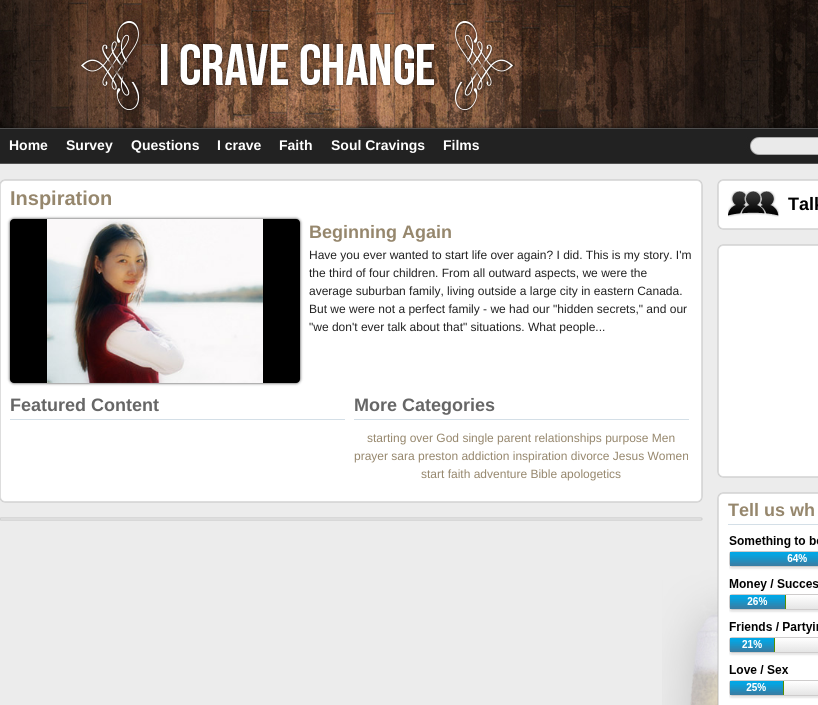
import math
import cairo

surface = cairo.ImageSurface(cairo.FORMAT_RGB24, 818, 705)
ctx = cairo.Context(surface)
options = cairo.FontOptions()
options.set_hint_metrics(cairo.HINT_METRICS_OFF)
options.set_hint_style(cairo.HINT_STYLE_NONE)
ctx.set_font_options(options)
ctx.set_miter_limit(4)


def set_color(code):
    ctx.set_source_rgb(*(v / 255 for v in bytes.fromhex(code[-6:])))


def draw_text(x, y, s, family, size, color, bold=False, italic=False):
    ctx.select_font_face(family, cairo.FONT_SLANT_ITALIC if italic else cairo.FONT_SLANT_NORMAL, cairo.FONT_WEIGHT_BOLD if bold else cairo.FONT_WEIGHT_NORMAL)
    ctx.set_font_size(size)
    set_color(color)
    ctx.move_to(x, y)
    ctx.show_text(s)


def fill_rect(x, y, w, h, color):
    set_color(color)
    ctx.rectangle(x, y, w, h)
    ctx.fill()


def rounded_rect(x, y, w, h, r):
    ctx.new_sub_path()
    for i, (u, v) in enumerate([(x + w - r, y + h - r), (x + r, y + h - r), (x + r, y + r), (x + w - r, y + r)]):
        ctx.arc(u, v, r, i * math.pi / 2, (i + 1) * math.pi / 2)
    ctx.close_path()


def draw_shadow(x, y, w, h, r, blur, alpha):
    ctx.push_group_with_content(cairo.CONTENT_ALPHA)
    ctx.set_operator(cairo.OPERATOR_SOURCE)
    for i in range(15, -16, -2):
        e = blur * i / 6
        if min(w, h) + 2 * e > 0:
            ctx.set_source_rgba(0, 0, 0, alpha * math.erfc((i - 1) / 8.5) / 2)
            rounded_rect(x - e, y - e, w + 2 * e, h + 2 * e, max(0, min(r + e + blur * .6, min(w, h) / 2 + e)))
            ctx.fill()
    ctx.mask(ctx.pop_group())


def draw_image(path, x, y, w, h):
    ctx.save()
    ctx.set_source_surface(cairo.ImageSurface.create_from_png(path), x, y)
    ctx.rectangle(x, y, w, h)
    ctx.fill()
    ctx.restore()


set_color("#ffffff")
ctx.paint()
draw_image("assets/img1.png", 0, 155, 818, 9)
draw_image("assets/img2.png", 0, 0, 818, 155)
draw_text(9, 150, "Home", "Liberation Sans", 14, "#ffffff", bold=True)
draw_text(66, 150, "Survey", "Liberation Sans", 14, "#ffffff", bold=True)
draw_text(131, 150, "Questions", "Liberation Sans", 14, "#ffffff", bold=True)
draw_text(217, 150, "I crave", "Liberation Sans", 14, "#ffffff", bold=True)
draw_text(279, 150, "Faith", "Liberation Sans", 14, "#ffffff", bold=True)
draw_text(331, 150, "Soul Cravings", "Liberation Sans", 14, "#ffffff", bold=True)
draw_text(443, 150, "Films", "Liberation Sans", 14, "#ffffff", bold=True)
fill_rect(0, 164, 818, 541, "#ececec")
draw_image("assets/img3.png", 662, 545, 56, 160)
set_color("#999999")
draw_shadow(0, 180, 702, 322, 5, 0.5, 1)
set_color("#ffffff")
rounded_rect(0.5, 180.5, 701, 321, 4.5)
ctx.fill_preserve()
set_color("#dddddd")
ctx.set_line_width(1)
ctx.stroke()
draw_text(10, 205, "Inspiration", "Liberation Sans", 20, "#96876d", bold=True)
set_color("#333333")
draw_shadow(10, 219, 290, 164, 4, 1.5, 1)
set_color("#000000")
rounded_rect(10, 219, 290, 164, 4)
ctx.fill()
draw_image("assets/img4.png", 47, 219, 216, 164)
draw_text(309, 238, "Beginning Again", "Liberation Sans", 18, "#96876d", bold=True)
draw_text(309, 259, "Have you ever wanted to start life over again? I did. This is my story. I'm", "Liberation Sans", 12, "#222222")
draw_text(309, 277, "the third of four children. From all outward aspects, we were the", "Liberation Sans", 12, "#222222")
draw_text(309, 295, "average suburban family, living outside a large city in eastern Canada.", "Liberation Sans", 12, "#222222")
draw_text(309, 313, "But we were not a perfect family - we had our \"hidden secrets,\" and our", "Liberation Sans", 12, "#222222")
draw_text(309, 331, "\"we don't ever talk about that\" situations. What people...", "Liberation Sans", 12, "#222222")
fill_rect(10, 419, 335, 1, "#d4dfe7")
draw_text(10, 411, "Featured Content", "Liberation Sans", 18, "#666666", bold=True)
fill_rect(354, 419, 335, 1, "#d4dfe7")
draw_text(354, 411, "More Categories", "Liberation Sans", 18, "#666666", bold=True)
draw_text(367, 442, "starting over God single parent relationships purpose Men", "Liberation Sans", 12, "#96876d")
draw_text(354, 460, "prayer sara preston addiction inspiration divorce Jesus Women", "Liberation Sans", 12, "#96876d")
draw_text(421, 478, "start faith adventure Bible apologetics", "Liberation Sans", 12, "#96876d")
set_color("#999999")
draw_shadow(0, 518, 702, 2, 1, 0.5, 1)
set_color("#dddddd")
rounded_rect(0, 518, 702, 2, 1)
ctx.fill()
set_color("#999999")
draw_shadow(718, 180, 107, 49, 5, 0.5, 1)
set_color("#ffffff")
rounded_rect(718.5, 180.5, 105, 48, 4.5)
ctx.fill_preserve()
set_color("#dddddd")
ctx.stroke()
draw_image("assets/img5.png", 728, 191, 51, 26)
draw_text(788, 210, "Talk", "Liberation Sans", 18, "#000000", bold=True)
set_color("#999999")
draw_shadow(718, 245, 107, 232, 5, 0.5, 1)
set_color("#ffffff")
rounded_rect(718.5, 245.5, 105, 231, 4.5)
ctx.fill_preserve()
set_color("#dddddd")
ctx.stroke()
set_color("#999999")
draw_shadow(718, 493, 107, 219, 5, 0.5, 1)
set_color("#ffffff")
rounded_rect(718.5, 493.5, 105, 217, 4.5)
ctx.fill_preserve()
set_color("#dddddd")
ctx.stroke()
fill_rect(728, 524, 90, 1, "#d4dfe7")
draw_text(728, 516, "Tell us wh", "Liberation Sans", 18, "#96876d", bold=True)
draw_image("assets/img6.png", 729, 536, 89, 163)
surface.write_to_png("output.png")
